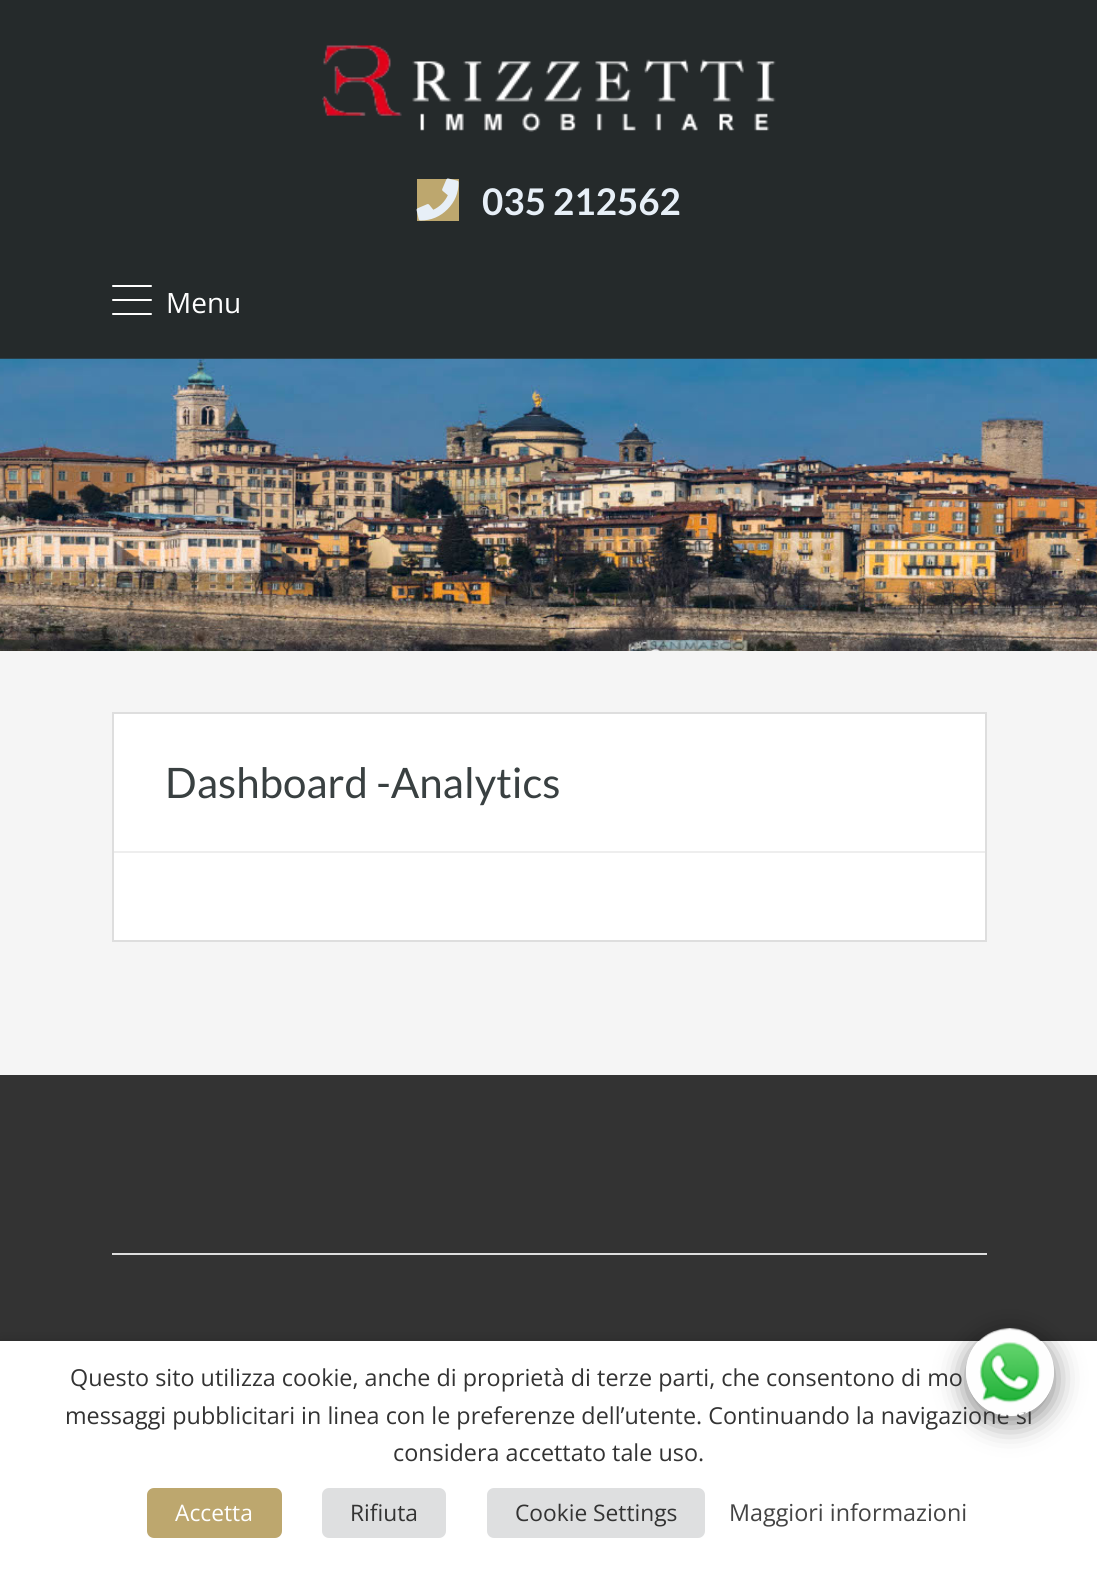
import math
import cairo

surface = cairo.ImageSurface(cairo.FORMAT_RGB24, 1097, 1572)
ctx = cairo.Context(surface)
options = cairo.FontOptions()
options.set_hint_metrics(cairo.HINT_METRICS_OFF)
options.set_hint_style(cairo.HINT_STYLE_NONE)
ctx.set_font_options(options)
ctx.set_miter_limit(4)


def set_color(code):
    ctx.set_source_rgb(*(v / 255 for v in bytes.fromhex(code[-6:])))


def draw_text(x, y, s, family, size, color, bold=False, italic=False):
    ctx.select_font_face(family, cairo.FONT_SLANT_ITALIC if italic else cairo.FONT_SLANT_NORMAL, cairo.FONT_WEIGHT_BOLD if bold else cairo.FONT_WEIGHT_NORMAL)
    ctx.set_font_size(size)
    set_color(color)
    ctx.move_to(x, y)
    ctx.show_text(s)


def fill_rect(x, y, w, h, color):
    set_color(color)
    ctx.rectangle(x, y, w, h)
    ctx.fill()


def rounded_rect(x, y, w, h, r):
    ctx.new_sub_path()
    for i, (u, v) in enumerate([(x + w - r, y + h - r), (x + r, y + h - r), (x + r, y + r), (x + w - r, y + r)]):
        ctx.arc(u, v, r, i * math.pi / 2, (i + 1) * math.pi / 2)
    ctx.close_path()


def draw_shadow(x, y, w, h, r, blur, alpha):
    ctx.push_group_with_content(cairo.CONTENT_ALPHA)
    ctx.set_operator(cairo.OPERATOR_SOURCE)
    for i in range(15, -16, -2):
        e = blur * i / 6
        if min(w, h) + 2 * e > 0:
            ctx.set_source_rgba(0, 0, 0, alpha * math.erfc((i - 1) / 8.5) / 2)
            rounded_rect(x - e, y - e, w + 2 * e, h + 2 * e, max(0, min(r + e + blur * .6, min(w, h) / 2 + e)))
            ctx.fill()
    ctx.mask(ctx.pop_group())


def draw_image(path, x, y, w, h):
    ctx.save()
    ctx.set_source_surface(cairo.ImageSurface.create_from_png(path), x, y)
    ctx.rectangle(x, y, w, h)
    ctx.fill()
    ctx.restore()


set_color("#f5f5f5")
ctx.paint()
fill_rect(0, 0, 1097, 359, "#252a2b")
draw_image("assets/img1.png", 322, 45, 454, 87)
fill_rect(417, 179, 42, 42, "#bda76e")
draw_image("assets/img2.png", 416, 178, 43, 43)
draw_text(482, 215, "035 212562", "Lato", 36.75, "#e7eff7", bold=True)
set_color("#ffffff")
rounded_rect(112, 299, 40, 2, 1)
ctx.fill()
rounded_rect(112, 285, 40, 2, 1)
ctx.fill()
rounded_rect(112, 313, 40, 2, 1)
ctx.fill()
draw_text(166, 313, "Menu", "Open Sans", 28, "#ffffff")
draw_image("assets/img3.png", 0, 358, 1097, 293)
ctx.rectangle(113, 713, 873, 228)
ctx.fill_preserve()
set_color("#dedede")
ctx.stroke()
fill_rect(114, 851, 871, 2, "#eeeeee")
draw_text(165, 798, "Dashboard -Analytics", "Lato", 42, "#394041")
fill_rect(0, 1075, 1097, 266, "#333333")
fill_rect(112, 1253, 875, 2, "#dedede")
set_color("#000000")
draw_shadow(0, 1349, 1097, 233, 0, 9, 0.5)
fill_rect(0, 1341, 1097, 231, "#ffffff")
ctx.save()
ctx.set_fill_rule(cairo.FILL_RULE_EVEN_ODD)
ctx.new_path()
ctx.move_to(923, 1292)
ctx.line_to(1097, 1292)
ctx.line_to(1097, 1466)
ctx.line_to(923, 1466)
ctx.close_path()
ctx.move_to(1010, 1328)
ctx.curve_to(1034.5, 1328, 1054, 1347.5, 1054, 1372)
ctx.curve_to(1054, 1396.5, 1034.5, 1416, 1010, 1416)
ctx.curve_to(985.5, 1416, 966, 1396.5, 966, 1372)
ctx.curve_to(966, 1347.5, 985.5, 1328, 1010, 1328)
ctx.close_path()
ctx.clip()
set_color("#000000")
draw_shadow(966, 1335, 88, 88, 44, 14, 0.5)
ctx.restore()
draw_text(65, 1424, "messaggi pubblicitari in linea con le preferenze dell’utente. Continuando la navigazione si", "Open Sans", 23.35, "#333333")
draw_image("assets/img4.png", 966, 1328, 88, 89)
draw_text(70, 1386, "Questo sito utilizza cookie, anche di proprietà di terze parti, che consentono di mo", "Open Sans", 23.35, "#333333")
draw_text(393, 1461, "considera accettato tale uso.", "Open Sans", 23.35, "#333333")
set_color("#bda76e")
rounded_rect(147, 1488, 135, 50, 7)
ctx.fill()
draw_text(175, 1521, "Accetta", "Open Sans", 22.75, "#ffffff")
set_color("#dedfe0")
rounded_rect(322, 1488, 124, 50, 7)
ctx.fill()
draw_text(350, 1521, "Rifiuta", "Open Sans", 22.75, "#333333")
set_color("#dedfe0")
rounded_rect(487, 1488, 218, 50, 7)
ctx.fill()
draw_text(515, 1521, "Cookie Settings", "Open Sans", 22.75, "#333333")
draw_text(729, 1521, "Maggiori informazioni", "Open Sans", 23.35, "#444444")
surface.write_to_png("output.png")
